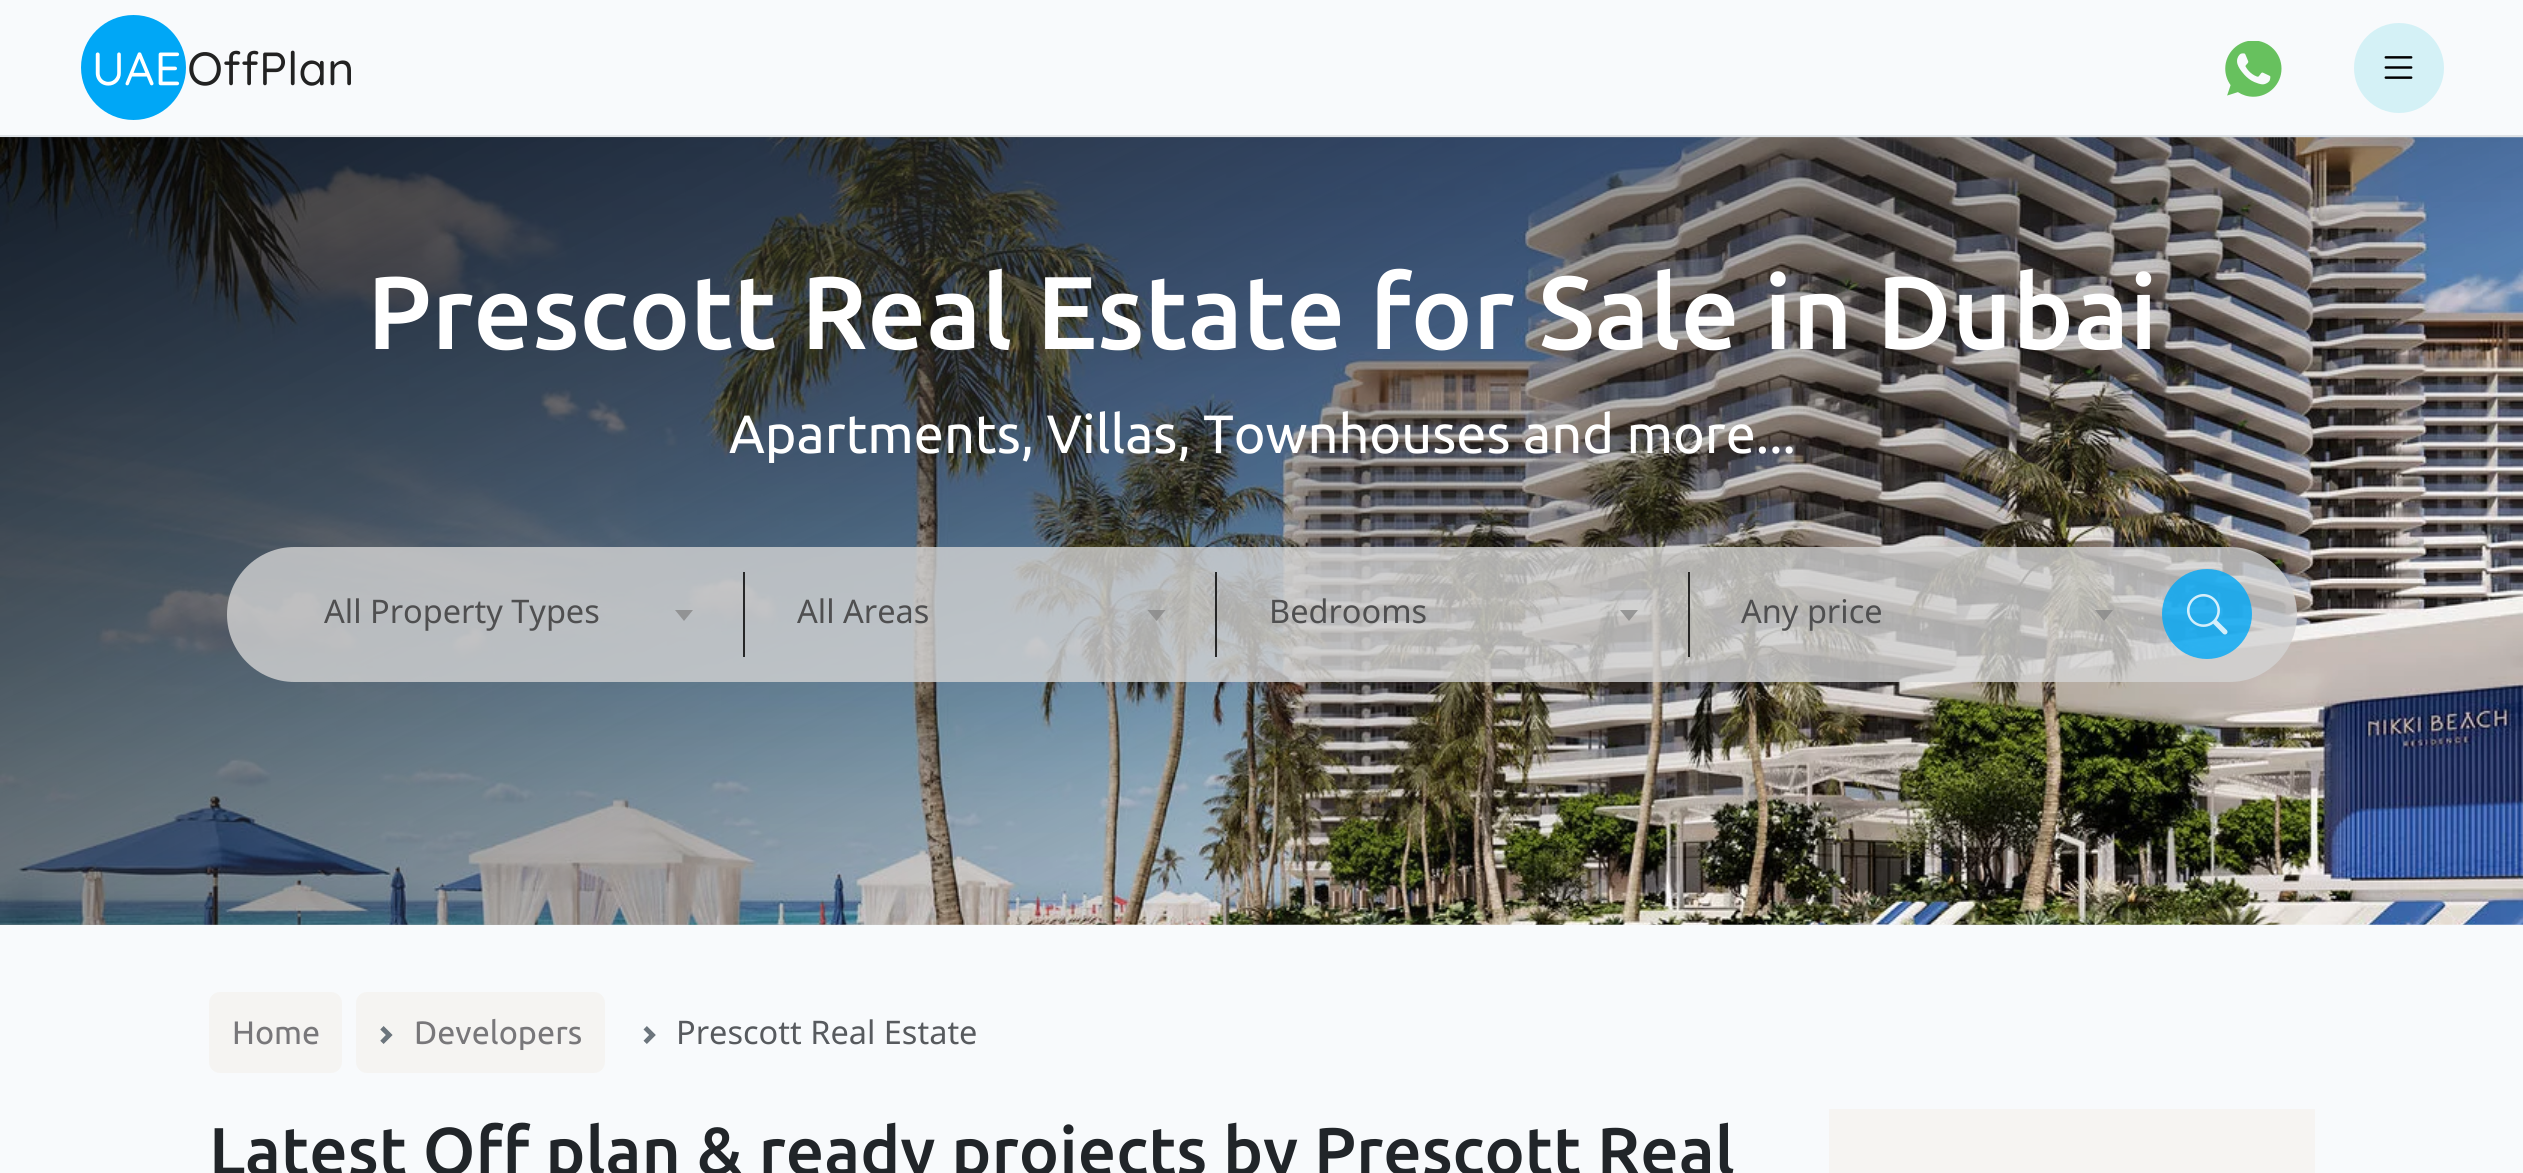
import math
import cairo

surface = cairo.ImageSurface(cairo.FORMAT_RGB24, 2523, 1173)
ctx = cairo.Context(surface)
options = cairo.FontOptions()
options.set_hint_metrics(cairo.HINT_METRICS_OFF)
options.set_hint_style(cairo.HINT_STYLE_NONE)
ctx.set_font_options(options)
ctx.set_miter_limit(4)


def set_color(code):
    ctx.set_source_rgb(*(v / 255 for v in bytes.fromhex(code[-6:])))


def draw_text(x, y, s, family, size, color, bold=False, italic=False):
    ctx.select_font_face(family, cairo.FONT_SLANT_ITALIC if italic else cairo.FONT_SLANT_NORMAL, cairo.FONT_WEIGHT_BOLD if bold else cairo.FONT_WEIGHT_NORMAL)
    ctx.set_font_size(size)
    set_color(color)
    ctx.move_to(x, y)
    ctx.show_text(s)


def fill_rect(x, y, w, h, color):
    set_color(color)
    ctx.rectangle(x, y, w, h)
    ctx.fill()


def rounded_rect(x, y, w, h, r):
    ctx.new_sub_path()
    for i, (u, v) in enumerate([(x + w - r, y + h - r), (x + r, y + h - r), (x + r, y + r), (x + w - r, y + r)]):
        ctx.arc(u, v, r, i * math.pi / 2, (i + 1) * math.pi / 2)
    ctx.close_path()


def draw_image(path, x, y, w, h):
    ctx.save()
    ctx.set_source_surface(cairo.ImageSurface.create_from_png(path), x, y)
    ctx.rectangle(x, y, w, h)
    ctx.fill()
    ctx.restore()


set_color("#f8fafc")
ctx.paint()
fill_rect(0, 135, 2523, 2, "#dee2e6")
draw_image("assets/img1.png", 81, 15, 270, 105)
draw_image("assets/img2.png", 2225, 41, 57, 56)
set_color("#d4f1f6")
ctx.arc(2399, 68, 45, 0, 2 * math.pi)
ctx.fill()
draw_image("assets/img3.png", 2384, 56, 29, 23)
draw_image("assets/img4.png", 0, 137, 2523, 788)
gradient = cairo.LinearGradient(1658, 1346, 866, -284)
gradient.add_color_stop_rgba(0.23, 0.133, 0.133, 0.133, 0)
gradient.add_color_stop_rgba(0.74, 0.133, 0.133, 0.133, 0.66)
gradient.add_color_stop_rgba(1, 0, 0, 0, 0.8)
ctx.set_source(gradient)
ctx.rectangle(0, 137, 2523, 788)
ctx.fill()
draw_text(367, 349, "Prescott Real Estate for Sale in Dubai", "Ubuntu Medium", 103.5, "#ffffff")
draw_text(729, 453, "Apartments, Villas, Townhouses and more...", "Ubuntu", 54, "#ffffff")
ctx.set_source_rgba(0.827, 0.827, 0.827, 0.8)
rounded_rect(227, 547, 2070, 135, 67.5)
ctx.fill()
ctx.set_source_rgba(0, 0, 0, 0.8)
ctx.rectangle(743, 572, 2, 85)
ctx.fill()
draw_text(324, 623, "All Property Types", "Noto Sans", 32.5, "#4f4f50")
ctx.set_source_rgba(0.533, 0.533, 0.533, 0.8)
ctx.new_path()
ctx.move_to(675, 610)
ctx.line_to(693, 610)
ctx.line_to(684, 621)
ctx.close_path()
ctx.fill()
ctx.set_source_rgba(0, 0, 0, 0.8)
ctx.rectangle(1215, 572, 2, 85)
ctx.fill()
draw_text(797, 623, "All Areas", "Noto Sans", 32.5, "#4f4f50")
ctx.set_source_rgba(0.533, 0.533, 0.533, 0.8)
ctx.new_path()
ctx.move_to(1147.5, 610)
ctx.line_to(1165.5, 610)
ctx.line_to(1156.5, 621)
ctx.close_path()
ctx.fill()
ctx.set_source_rgba(0, 0, 0, 0.8)
ctx.rectangle(1688, 572, 2, 85)
ctx.fill()
draw_text(1269, 623, "Bedrooms", "Noto Sans", 32.5, "#4f4f50")
ctx.set_source_rgba(0.533, 0.533, 0.533, 0.8)
ctx.new_path()
ctx.move_to(1620, 610)
ctx.line_to(1638, 610)
ctx.line_to(1629, 621)
ctx.close_path()
ctx.fill()
draw_text(1741, 623, "Any price", "Noto Sans", 32.5, "#4f4f50")
ctx.set_source_rgba(0.533, 0.533, 0.533, 0.8)
ctx.new_path()
ctx.move_to(2095, 610)
ctx.line_to(2113, 610)
ctx.line_to(2104, 621)
ctx.close_path()
ctx.fill()
ctx.set_source_rgba(0, 0.655, 0.965, 0.8)
ctx.arc(2207, 614, 45, 0, 2 * math.pi)
ctx.fill()
draw_image("assets/img5.png", 2187, 594, 41, 41)
set_color("#f5f4f2")
rounded_rect(209, 992, 133, 81, 11)
ctx.fill()
draw_text(232, 1044, "Home", "Ubuntu", 32.5, "#78777a")
set_color("#f5f4f2")
rounded_rect(356, 992, 249, 81, 11)
ctx.fill()
draw_image("assets/img6.png", 380, 1026, 13, 18)
draw_text(414, 1044, "Developers", "Ubuntu", 32.5, "#78777a")
draw_image("assets/img7.png", 643, 1026, 13, 18)
draw_text(676, 1044, "Prescott Real Estate", "Noto Sans", 32.5, "#575a5e")
draw_text(209, 1175, "Latest Off plan & ready projects by Prescott Real", "Ubuntu Medium", 67.5, "#212529")
fill_rect(1829, 1109, 486, 64, "#f6f4f2")
surface.write_to_png("output.png")
